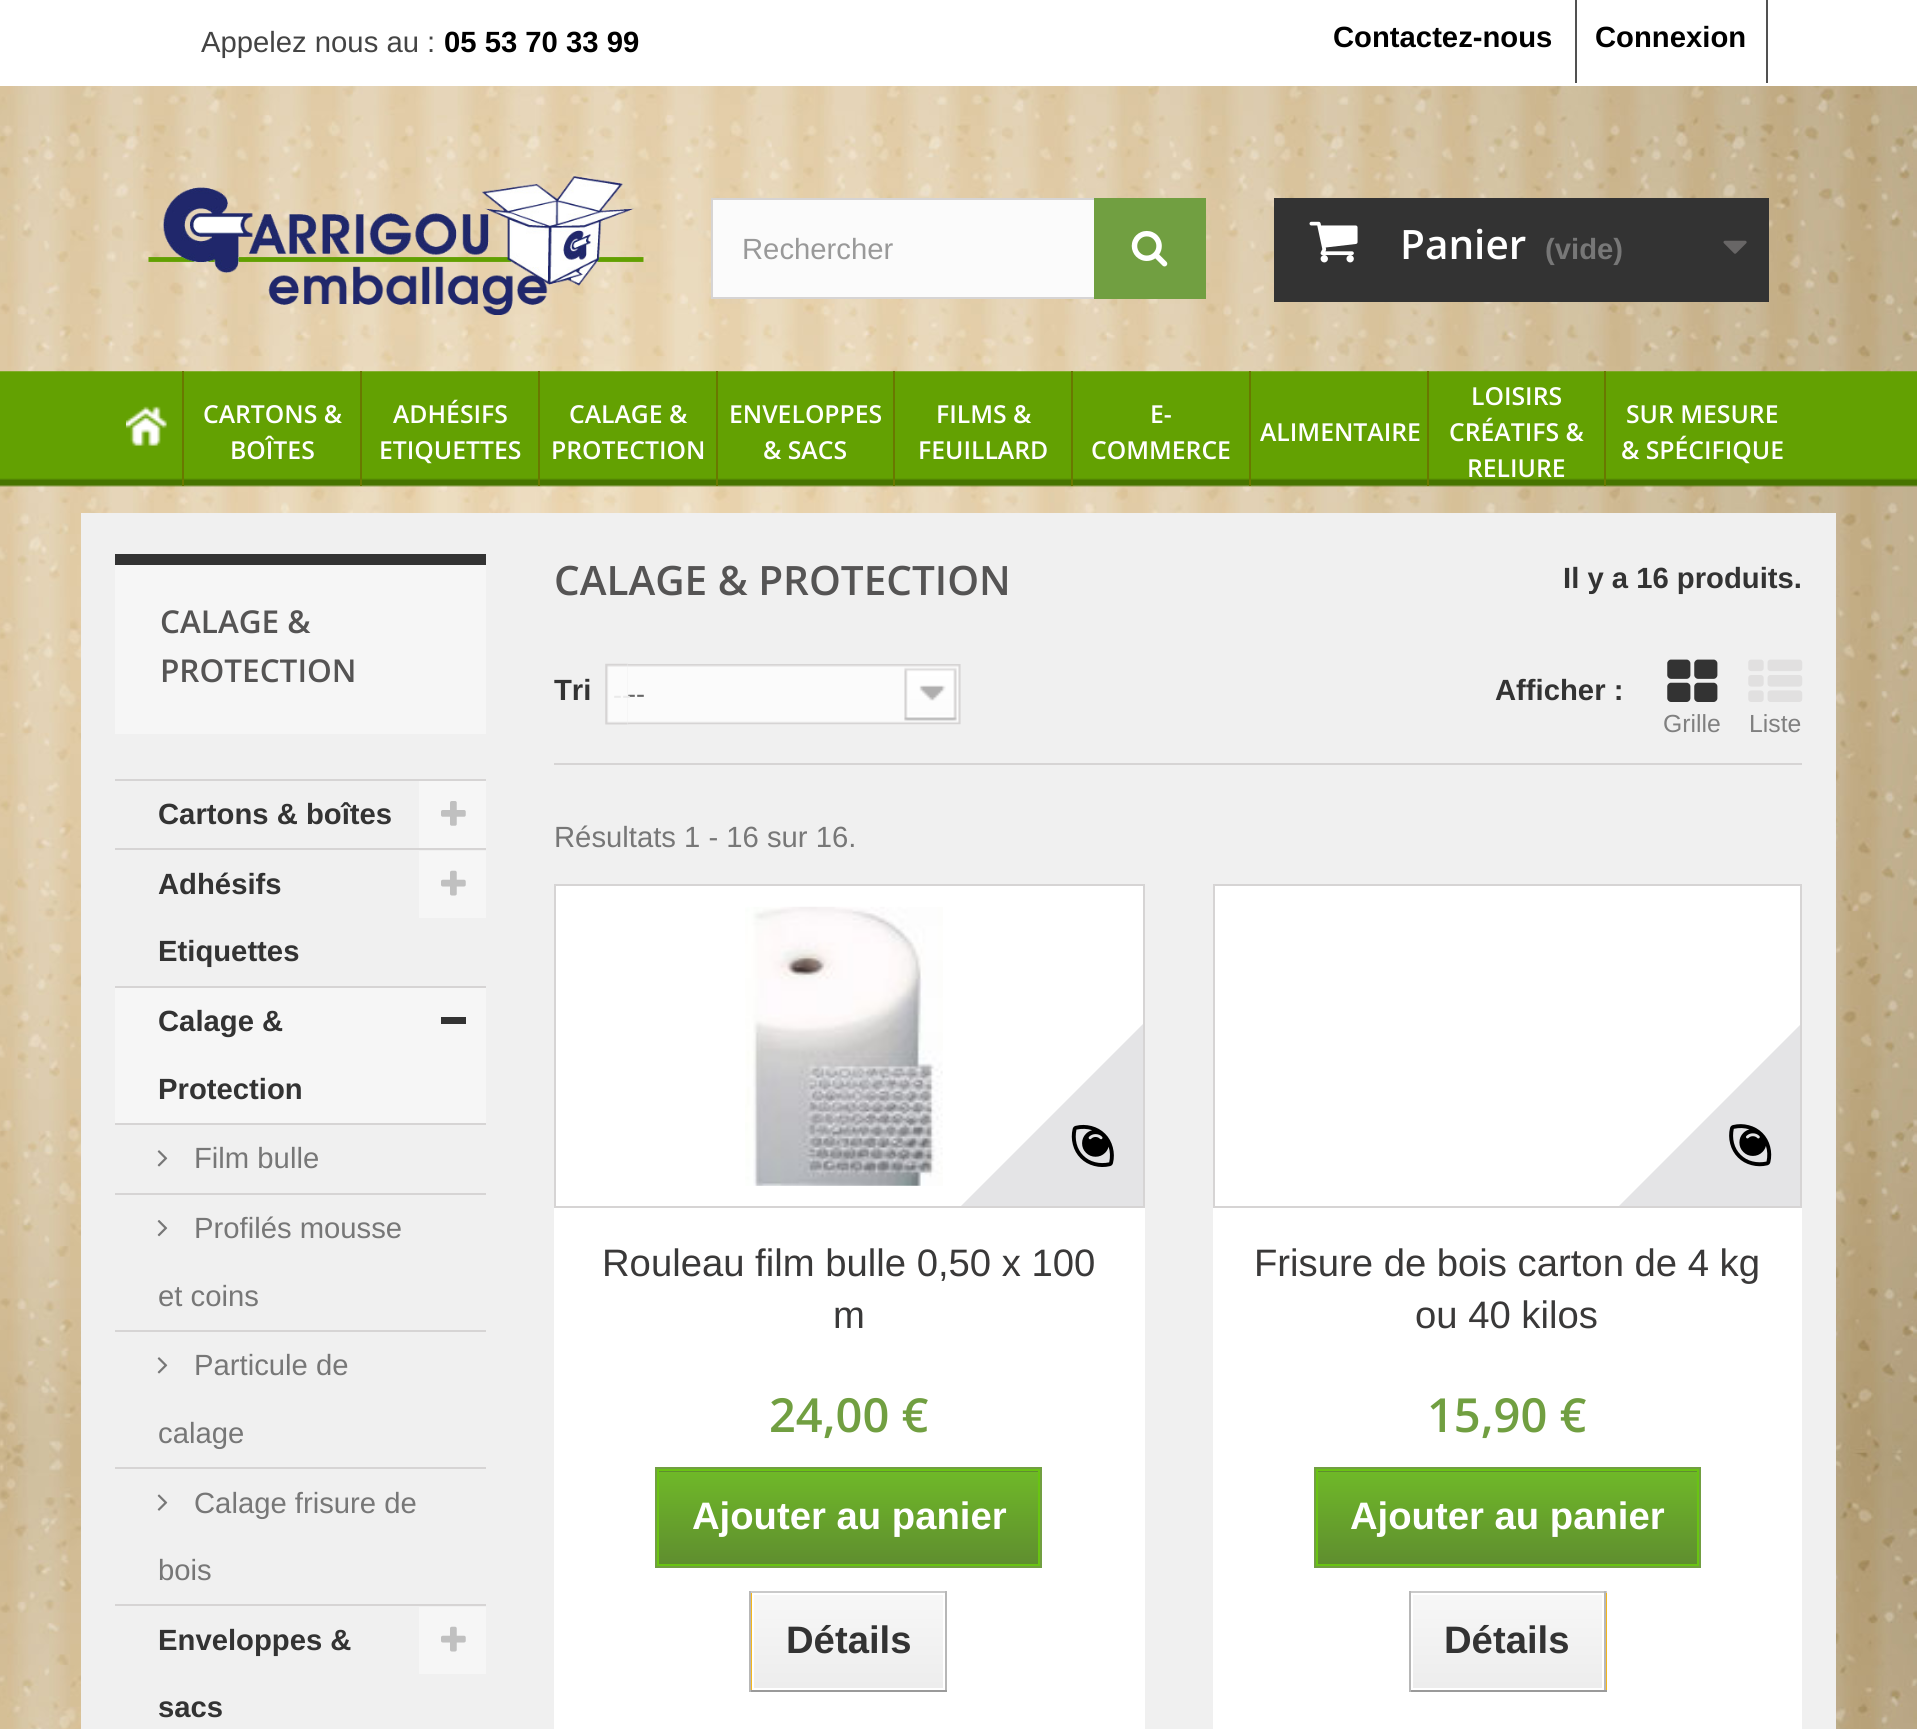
import math
import cairo

surface = cairo.ImageSurface(cairo.FORMAT_RGB24, 1917, 1729)
ctx = cairo.Context(surface)
options = cairo.FontOptions()
options.set_hint_metrics(cairo.HINT_METRICS_OFF)
options.set_hint_style(cairo.HINT_STYLE_NONE)
ctx.set_font_options(options)
ctx.set_miter_limit(4)


def set_color(code):
    ctx.set_source_rgb(*(v / 255 for v in bytes.fromhex(code[-6:])))


def draw_text(x, y, s, family, size, color, bold=False, italic=False):
    ctx.select_font_face(family, cairo.FONT_SLANT_ITALIC if italic else cairo.FONT_SLANT_NORMAL, cairo.FONT_WEIGHT_BOLD if bold else cairo.FONT_WEIGHT_NORMAL)
    ctx.set_font_size(size)
    set_color(color)
    ctx.move_to(x, y)
    ctx.show_text(s)


def fill_rect(x, y, w, h, color):
    set_color(color)
    ctx.rectangle(x, y, w, h)
    ctx.fill()


def draw_image(path, x, y, w, h):
    ctx.save()
    ctx.set_source_surface(cairo.ImageSurface.create_from_png(path), x, y)
    ctx.rectangle(x, y, w, h)
    ctx.fill()
    ctx.restore()


set_color("#ffffff")
ctx.paint()
draw_image("assets/img1.png", 0, 86, 1917, 1643)
draw_image("assets/img2.png", 0, 371, 1917, 116)
draw_text(201, 52, "Appelez nous au :", "Liberation Sans", 29.25, "#444444")
draw_text(444, 52, "05 53 70 33 99", "Liberation Sans", 29.25, "#000000", bold=True)
draw_text(1333, 47, "Contactez-nous", "Liberation Sans", 29.25, "#000000", bold=True)
fill_rect(1766, 0, 2, 83, "#515151")
fill_rect(1575, 0, 2, 83, "#515151")
draw_text(1595, 47, "Connexion", "Liberation Sans", 29.25, "#000000", bold=True)
draw_image("assets/img3.png", 148, 176, 496, 139)
fill_rect(713, 200, 381, 97, "#fbfbfb")
ctx.rectangle(712, 199, 493, 99)
set_color("#d6d4d4")
ctx.stroke()
draw_text(742, 259, "Rechercher", "Liberation Sans", 29.25, "#999999")
fill_rect(1094, 198, 112, 101, "#719f41")
draw_image("assets/img4.png", 1131, 230, 37, 37)
fill_rect(1274, 198, 495, 104, "#333333")
draw_image("assets/img5.png", 1309, 221, 49, 42)
draw_text(1400, 259, "Panier", "Open Sans SemiBold", 40.5, "#ffffff")
draw_text(1545, 259, "(vide)", "Liberation Sans", 29.25, "#777777", bold=True)
draw_image("assets/img6.png", 1723, 240, 24, 14)
draw_image("assets/img7.png", 126, 406, 41, 40)
fill_rect(182, 371, 2, 115, "#697800")
fill_rect(360, 371, 2, 115, "#697800")
draw_text(203, 423, "CARTONS &", "Open Sans SemiBold", 24.75, "#ffffff")
draw_text(230, 459, "BOÎTES", "Open Sans SemiBold", 24.75, "#ffffff")
fill_rect(538, 371, 2, 115, "#697800")
draw_text(393, 423, "ADHÉSIFS", "Open Sans SemiBold", 24.75, "#ffffff")
draw_text(379, 459, "ETIQUETTES", "Open Sans SemiBold", 24.75, "#ffffff")
fill_rect(716, 371, 2, 115, "#697800")
draw_text(569, 423, "CALAGE &", "Open Sans SemiBold", 24.75, "#ffffff")
draw_text(551, 459, "PROTECTION", "Open Sans SemiBold", 24.75, "#ffffff")
fill_rect(893, 371, 2, 115, "#697800")
draw_text(729, 423, "ENVELOPPES", "Open Sans SemiBold", 24.75, "#ffffff")
draw_text(763, 459, "& SACS", "Open Sans SemiBold", 24.75, "#ffffff")
fill_rect(1071, 371, 2, 115, "#697800")
draw_text(936, 423, "FILMS &", "Open Sans SemiBold", 24.75, "#ffffff")
draw_text(918, 459, "FEUILLARD", "Open Sans SemiBold", 24.75, "#ffffff")
fill_rect(1249, 371, 2, 115, "#697800")
draw_text(1150, 423, "E-", "Open Sans SemiBold", 24.75, "#ffffff")
draw_text(1091, 459, "COMMERCE", "Open Sans SemiBold", 24.75, "#ffffff")
fill_rect(1427, 371, 2, 115, "#697800")
draw_text(1260, 441, "ALIMENTAIRE", "Open Sans SemiBold", 24.75, "#ffffff")
fill_rect(1604, 371, 2, 115, "#697800")
draw_text(1471, 405, "LOISIRS", "Open Sans SemiBold", 24.75, "#ffffff")
draw_text(1449, 441, "CRÉATIFS &", "Open Sans SemiBold", 24.75, "#ffffff")
draw_text(1467, 477, "RELIURE", "Open Sans SemiBold", 24.75, "#ffffff")
draw_text(1626, 423, "SUR MESURE", "Open Sans SemiBold", 24.75, "#ffffff")
draw_text(1621, 459, "& SPÉCIFIQUE", "Open Sans SemiBold", 24.75, "#ffffff")
fill_rect(81, 513, 1755, 1216, "#f0f0f0")
fill_rect(115, 565, 371, 169, "#f6f6f6")
fill_rect(115, 554, 371, 11, "#333333")
draw_text(160, 633, "CALAGE &", "Open Sans SemiBold", 31.5, "#555454")
draw_text(160, 682, "PROTECTION", "Open Sans SemiBold", 31.5, "#555454")
fill_rect(115, 779, 371, 2, "#d6d4d4")
fill_rect(115, 848, 371, 2, "#d6d4d4")
draw_text(158, 824, "Cartons & boîtes", "Liberation Sans", 29.25, "#333333", bold=True)
fill_rect(419, 781, 67, 67, "#f6f6f6")
draw_image("assets/img8.png", 441, 801, 25, 25)
fill_rect(115, 986, 371, 2, "#d6d4d4")
draw_text(158, 894, "Adhésifs", "Liberation Sans", 29.25, "#333333", bold=True)
draw_text(158, 961, "Etiquettes", "Liberation Sans", 29.25, "#333333", bold=True)
fill_rect(419, 851, 67, 67, "#f6f6f6")
draw_image("assets/img9.png", 441, 870, 25, 26)
fill_rect(115, 988, 371, 135, "#f6f6f6")
fill_rect(115, 1123, 371, 2, "#d6d4d4")
draw_text(158, 1031, "Calage &", "Liberation Sans", 29.25, "#333333", bold=True)
draw_text(158, 1099, "Protection", "Liberation Sans", 29.25, "#333333", bold=True)
fill_rect(441, 1017, 25, 7, "#333333")
fill_rect(115, 1193, 371, 2, "#d6d4d4")
draw_image("assets/img10.png", 157, 1150, 11, 17)
draw_text(194, 1168, "Film bulle", "Liberation Sans", 29.25, "#777777")
fill_rect(115, 1330, 371, 2, "#d6d4d4")
draw_image("assets/img11.png", 157, 1220, 11, 17)
draw_text(194, 1238, "Profilés mousse", "Liberation Sans", 29.25, "#777777")
draw_text(158, 1306, "et coins", "Liberation Sans", 29.25, "#777777")
fill_rect(115, 1467, 371, 2, "#d6d4d4")
draw_image("assets/img10.png", 157, 1357, 11, 17)
draw_text(194, 1375, "Particule de", "Liberation Sans", 29.25, "#777777")
draw_text(158, 1443, "calage", "Liberation Sans", 29.25, "#777777")
fill_rect(115, 1604, 371, 2, "#d6d4d4")
draw_image("assets/img12.png", 157, 1494, 11, 17)
draw_text(194, 1513, "Calage frisure de", "Liberation Sans", 29.25, "#777777")
draw_text(158, 1580, "bois", "Liberation Sans", 29.25, "#777777")
draw_text(158, 1650, "Enveloppes &", "Liberation Sans", 29.25, "#333333", bold=True)
draw_text(158, 1717, "sacs", "Liberation Sans", 29.25, "#333333", bold=True)
fill_rect(419, 1607, 67, 67, "#f6f6f6")
draw_image("assets/img9.png", 441, 1626, 25, 26)
draw_text(554, 595, "CALAGE & PROTECTION", "Open Sans SemiBold", 40.5, "#555454")
draw_text(1563, 588, "Il y a 16 produits.", "Liberation Sans", 29.25, "#333333", bold=True)
fill_rect(554, 763, 1248, 2, "#d6d4d4")
draw_text(554, 700, "Tri", "Liberation Sans", 29.25, "#333333", bold=True)
draw_image("assets/img13.png", 605, 663, 24, 62)
draw_image("assets/img14.png", 628, 664, 333, 61)
draw_text(627, 703, "--", "Liberation Sans", 27, "#666666")
draw_text(613, 704, "--", "Liberation Sans", 27, "#eaeaea")
draw_text(1495, 700, "Afficher :", "Liberation Sans", 29.25, "#333333", bold=True)
draw_image("assets/img15.png", 1667, 659, 51, 43)
draw_text(1663, 732, "Grille", "Liberation Sans", 24.75, "#808080")
draw_image("assets/img16.png", 1748, 659, 55, 43)
draw_text(1749, 732, "Liste", "Liberation Sans", 24.75, "#808080")
draw_text(554, 847, "Résultats 1 - 16 sur 16.", "Liberation Sans", 29.25, "#777777")
fill_rect(554, 886, 591, 843, "#ffffff")
ctx.rectangle(555, 885, 589, 322)
set_color("#d6d4d4")
ctx.stroke()
draw_image("assets/img17.png", 745, 906, 198, 280)
ctx.save()
ctx.rectangle(659, 857, 484, 349)
ctx.clip()
set_color("#e4e4e6")
ctx.new_path()
ctx.move_to(1154, 1013)
ctx.line_to(1289, 1148)
ctx.line_to(1082, 1355)
ctx.line_to(947, 1220)
ctx.close_path()
ctx.fill()
ctx.restore()
draw_image("assets/img18.png", 1071, 1124, 43, 43)
draw_text(602, 1276, "Rouleau film bulle 0,50 x 100", "Liberation Sans", 38.25, "#3a3939")
draw_text(833, 1328, "m", "Liberation Sans", 38.25, "#3a3939")
draw_text(769, 1432, "24,00 €", "Open Sans SemiBold", 47, "#719f41")
ctx.rectangle(656, 1468, 385, 99)
ctx.stroke()
gradient = cairo.LinearGradient(848, 1379, 848, 1472)
gradient.add_color_stop_rgba(0, 0.435, 0.722, 0.157, 1)
gradient.add_color_stop_rgba(1, 0.373, 0.557, 0.184, 1)
ctx.set_source(gradient)
ctx.rectangle(657, 1471, 383, 1)
ctx.fill()
gradient = cairo.LinearGradient(848, 1472, 848, 1564)
gradient.add_color_stop_rgba(0, 0.435, 0.722, 0.157, 1)
gradient.add_color_stop_rgba(1, 0.373, 0.557, 0.184, 1)
ctx.set_source(gradient)
ctx.rectangle(659, 1472, 379, 92)
ctx.fill()
ctx.rectangle(658, 1470, 381, 95)
set_color("#69c412")
ctx.stroke()
draw_text(692, 1529, "Ajouter au panier", "Liberation Sans", 38.25, "#ffffff", bold=True)
fill_rect(751, 1593, 1, 97, "#f4b61b")
fill_rect(749, 1591, 198, 2, "#cacaca")
fill_rect(945, 1591, 2, 101, "#b7b7b7")
fill_rect(749, 1690, 198, 2, "#9a9a9a")
fill_rect(749, 1591, 2, 101, "#b7b7b7")
gradient = cairo.LinearGradient(848, 1595, 848, 1688)
gradient.add_color_stop_rgba(0, 0.969, 0.969, 0.969, 1)
gradient.add_color_stop_rgba(1, 0.929, 0.929, 0.929, 1)
ctx.set_source(gradient)
ctx.rectangle(754, 1595, 189, 93)
ctx.fill()
draw_text(786, 1653, "Détails", "Liberation Sans", 38.25, "#333333", bold=True)
fill_rect(1213, 886, 589, 843, "#ffffff")
ctx.rectangle(1214, 885, 587, 322)
set_color("#d6d4d4")
ctx.stroke()
ctx.save()
ctx.rectangle(1316, 857, 484, 349)
ctx.clip()
set_color("#e4e4e6")
ctx.new_path()
ctx.move_to(1812, 1013)
ctx.line_to(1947, 1148)
ctx.line_to(1741, 1355)
ctx.line_to(1605, 1220)
ctx.close_path()
ctx.fill()
ctx.restore()
draw_image("assets/img19.png", 1729, 1124, 43, 43)
draw_text(1254, 1276, "Frisure de bois carton de 4 kg", "Liberation Sans", 38.25, "#3a3939")
draw_text(1415, 1328, "ou 40 kilos", "Liberation Sans", 38.25, "#3a3939")
draw_text(1427, 1432, "15,90 €", "Open Sans SemiBold", 47, "#719f41")
ctx.rectangle(1315, 1468, 385, 99)
ctx.stroke()
gradient = cairo.LinearGradient(1508, 1379, 1508, 1472)
gradient.add_color_stop_rgba(0, 0.435, 0.722, 0.157, 1)
gradient.add_color_stop_rgba(1, 0.373, 0.557, 0.184, 1)
ctx.set_source(gradient)
ctx.rectangle(1316, 1471, 383, 1)
ctx.fill()
gradient = cairo.LinearGradient(1508, 1472, 1508, 1564)
gradient.add_color_stop_rgba(0, 0.435, 0.722, 0.157, 1)
gradient.add_color_stop_rgba(1, 0.373, 0.557, 0.184, 1)
ctx.set_source(gradient)
ctx.rectangle(1318, 1472, 379, 92)
ctx.fill()
ctx.rectangle(1317, 1470, 381, 95)
set_color("#69c412")
ctx.stroke()
draw_text(1350, 1529, "Ajouter au panier", "Liberation Sans", 38.25, "#ffffff", bold=True)
fill_rect(1606, 1593, 1, 97, "#f4b61b")
fill_rect(1409, 1591, 198, 2, "#cacaca")
fill_rect(1604, 1591, 2, 101, "#b7b7b7")
fill_rect(1409, 1690, 198, 2, "#9a9a9a")
fill_rect(1409, 1591, 2, 101, "#b7b7b7")
gradient = cairo.LinearGradient(1508, 1595, 1508, 1688)
gradient.add_color_stop_rgba(0, 0.969, 0.969, 0.969, 1)
gradient.add_color_stop_rgba(1, 0.929, 0.929, 0.929, 1)
ctx.set_source(gradient)
ctx.rectangle(1413, 1595, 189, 93)
ctx.fill()
draw_text(1444, 1653, "Détails", "Liberation Sans", 38.25, "#333333", bold=True)
surface.write_to_png("output.png")
